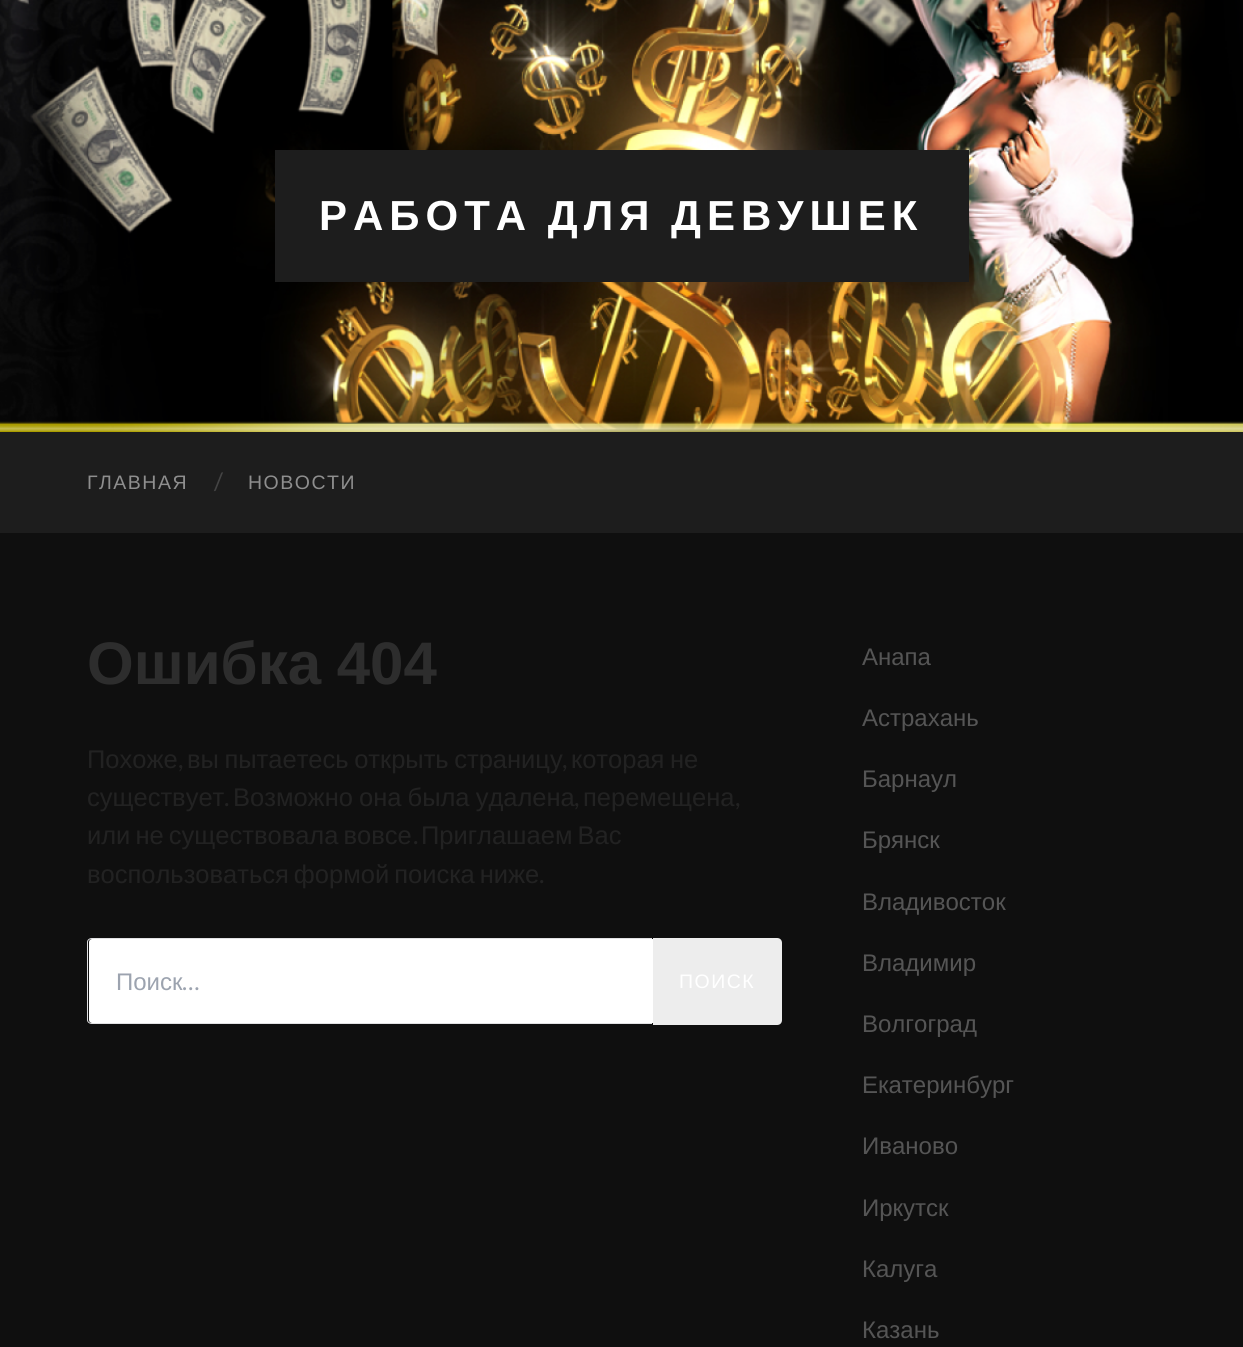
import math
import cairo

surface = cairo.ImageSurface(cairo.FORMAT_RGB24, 1243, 1347)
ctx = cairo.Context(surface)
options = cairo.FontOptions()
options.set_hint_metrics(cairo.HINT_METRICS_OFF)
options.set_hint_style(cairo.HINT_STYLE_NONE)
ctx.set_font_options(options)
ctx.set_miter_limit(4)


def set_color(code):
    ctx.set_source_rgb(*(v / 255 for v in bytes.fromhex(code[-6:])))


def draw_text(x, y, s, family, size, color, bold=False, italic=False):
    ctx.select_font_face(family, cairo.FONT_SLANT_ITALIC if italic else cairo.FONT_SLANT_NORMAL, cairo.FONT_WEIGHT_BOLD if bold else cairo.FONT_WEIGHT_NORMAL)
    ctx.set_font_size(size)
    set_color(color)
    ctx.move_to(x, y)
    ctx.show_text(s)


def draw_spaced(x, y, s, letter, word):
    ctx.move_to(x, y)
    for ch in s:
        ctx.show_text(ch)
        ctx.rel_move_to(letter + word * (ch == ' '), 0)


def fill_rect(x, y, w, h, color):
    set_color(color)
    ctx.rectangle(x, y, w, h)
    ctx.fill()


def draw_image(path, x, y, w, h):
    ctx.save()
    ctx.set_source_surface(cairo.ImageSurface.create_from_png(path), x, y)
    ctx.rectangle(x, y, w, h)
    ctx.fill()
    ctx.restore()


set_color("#0f0f0f")
ctx.paint()
draw_image("assets/img1.png", 0, 0, 1243, 432)
fill_rect(275, 150, 694, 132, "#1d1d1d")
ctx.select_font_face("Liberation Sans", cairo.FONT_SLANT_NORMAL, cairo.FONT_WEIGHT_BOLD)
ctx.set_font_size(42)
set_color("#ffffff")
draw_spaced(319, 230, "РАБОТА ДЛЯ ДЕВУШЕК", 6, -2)
fill_rect(0, 432, 1243, 101, "#1d1d1d")
ctx.select_font_face("Liberation Sans")
ctx.set_font_size(19.5)
set_color("#8e8e8e")
draw_spaced(87, 489, "ГЛАВНАЯ", 1.5, 0)
draw_text(214, 490, "/", "Lato", 24, "#444444")
ctx.select_font_face("Liberation Sans")
ctx.set_font_size(19.5)
set_color("#8e8e8e")
draw_spaced(248, 489, "НОВОСТИ", 1.5, 0)
ctx.select_font_face("Liberation Sans", cairo.FONT_SLANT_NORMAL, cairo.FONT_WEIGHT_BOLD)
ctx.set_font_size(60)
set_color("#2d2d2d")
draw_spaced(87, 684, "Ошибка 404", 0, -1)
draw_text(87, 768, "Похоже", "Liberation Sans", 25.5, "#222222")
draw_text(178, 768, ",", "Lato", 25.5, "#222222")
ctx.select_font_face("Liberation Sans")
draw_spaced(187, 768, "вы пытаетесь открыть страницу", 0, -1.5)
draw_text(562, 768, ",", "Lato", 25.5, "#222222")
ctx.select_font_face("Liberation Sans")
draw_spaced(571, 768, "которая не", 0, -1.5)
draw_text(87, 806, "существует", "Liberation Sans", 25.5, "#222222")
draw_text(224, 806, ".", "Lato", 25.5, "#222222")
ctx.select_font_face("Liberation Sans")
draw_spaced(233, 806, "Возможно она была удалена", 0, -1)
draw_text(574, 806, ",", "Lato", 25.5, "#222222")
draw_text(583, 806, "перемещена", "Liberation Sans", 25.5, "#222222")
draw_text(735, 806, ",", "Lato", 25.5, "#222222")
ctx.select_font_face("Liberation Sans")
draw_spaced(87, 844, "или не существовала вовсе", 0, -2)
draw_text(413, 844, ".", "Lato", 25.5, "#222222")
ctx.select_font_face("Liberation Sans")
draw_spaced(421, 844, "Приглашаем Вас", 0, -2)
draw_spaced(87, 883, "воспользоваться формой поиска ниже", 0, -2)
draw_text(539, 883, ".", "Lato", 25.5, "#222222")
set_color("#ffffff")
ctx.new_path()
ctx.move_to(92, 939)
ctx.line_to(653, 939)
ctx.line_to(653, 1023)
ctx.line_to(92, 1023)
ctx.curve_to(90.5, 1023, 89, 1021.5, 89, 1020)
ctx.line_to(89, 942)
ctx.curve_to(89, 940.5, 90.5, 939, 92, 939)
ctx.close_path()
ctx.fill()
set_color("#e1e1e3")
ctx.set_fill_rule(cairo.FILL_RULE_EVEN_ODD)
ctx.new_path()
ctx.move_to(92, 938)
ctx.line_to(652, 938)
ctx.line_to(652, 1024)
ctx.line_to(92, 1024)
ctx.curve_to(89, 1024, 87, 1022, 87, 1020)
ctx.line_to(87, 942)
ctx.curve_to(87, 940, 89, 938, 92, 938)
ctx.close_path()
ctx.move_to(92, 939)
ctx.line_to(652, 939)
ctx.line_to(652, 1023)
ctx.line_to(92, 1023)
ctx.curve_to(90, 1023, 88, 1022, 88, 1020)
ctx.line_to(88, 942)
ctx.curve_to(88, 940, 90, 939, 92, 939)
ctx.close_path()
ctx.fill()
draw_text(116, 990, "Поиск", "Liberation Sans", 24, "#9ca3af")
draw_text(182, 990, "…", "Lato", 24, "#9ca3af")
set_color("#ededed")
ctx.new_path()
ctx.move_to(653, 938)
ctx.line_to(777, 938)
ctx.curve_to(780, 938, 782, 940, 782, 943)
ctx.line_to(782, 1020)
ctx.curve_to(782, 1023, 780, 1025, 777, 1025)
ctx.line_to(653, 1025)
ctx.close_path()
ctx.fill()
ctx.select_font_face("Liberation Sans")
ctx.set_font_size(19.5)
set_color("#ffffff")
draw_spaced(679, 988, "ПОИСК", 1.5, 0)
draw_text(862, 665, "Анапа", "Liberation Sans", 24, "#555555")
draw_text(862, 726, "Астрахань", "Liberation Sans", 24, "#555555")
draw_text(862, 787, "Барнаул", "Liberation Sans", 24, "#555555")
draw_text(862, 848, "Брянск", "Liberation Sans", 24, "#555555")
draw_text(862, 910, "Владивосток", "Liberation Sans", 24, "#555555")
draw_text(862, 971, "Владимир", "Liberation Sans", 24, "#555555")
draw_text(862, 1032, "Волгоград", "Liberation Sans", 24, "#555555")
draw_text(862, 1093, "Екатеринбург", "Liberation Sans", 24, "#555555")
draw_text(862, 1154, "Иваново", "Liberation Sans", 24, "#555555")
draw_text(862, 1216, "Иркутск", "Liberation Sans", 24, "#555555")
draw_text(862, 1277, "Калуга", "Liberation Sans", 24, "#555555")
draw_text(862, 1338, "Казань", "Liberation Sans", 24, "#555555")
surface.write_to_png("output.png")
